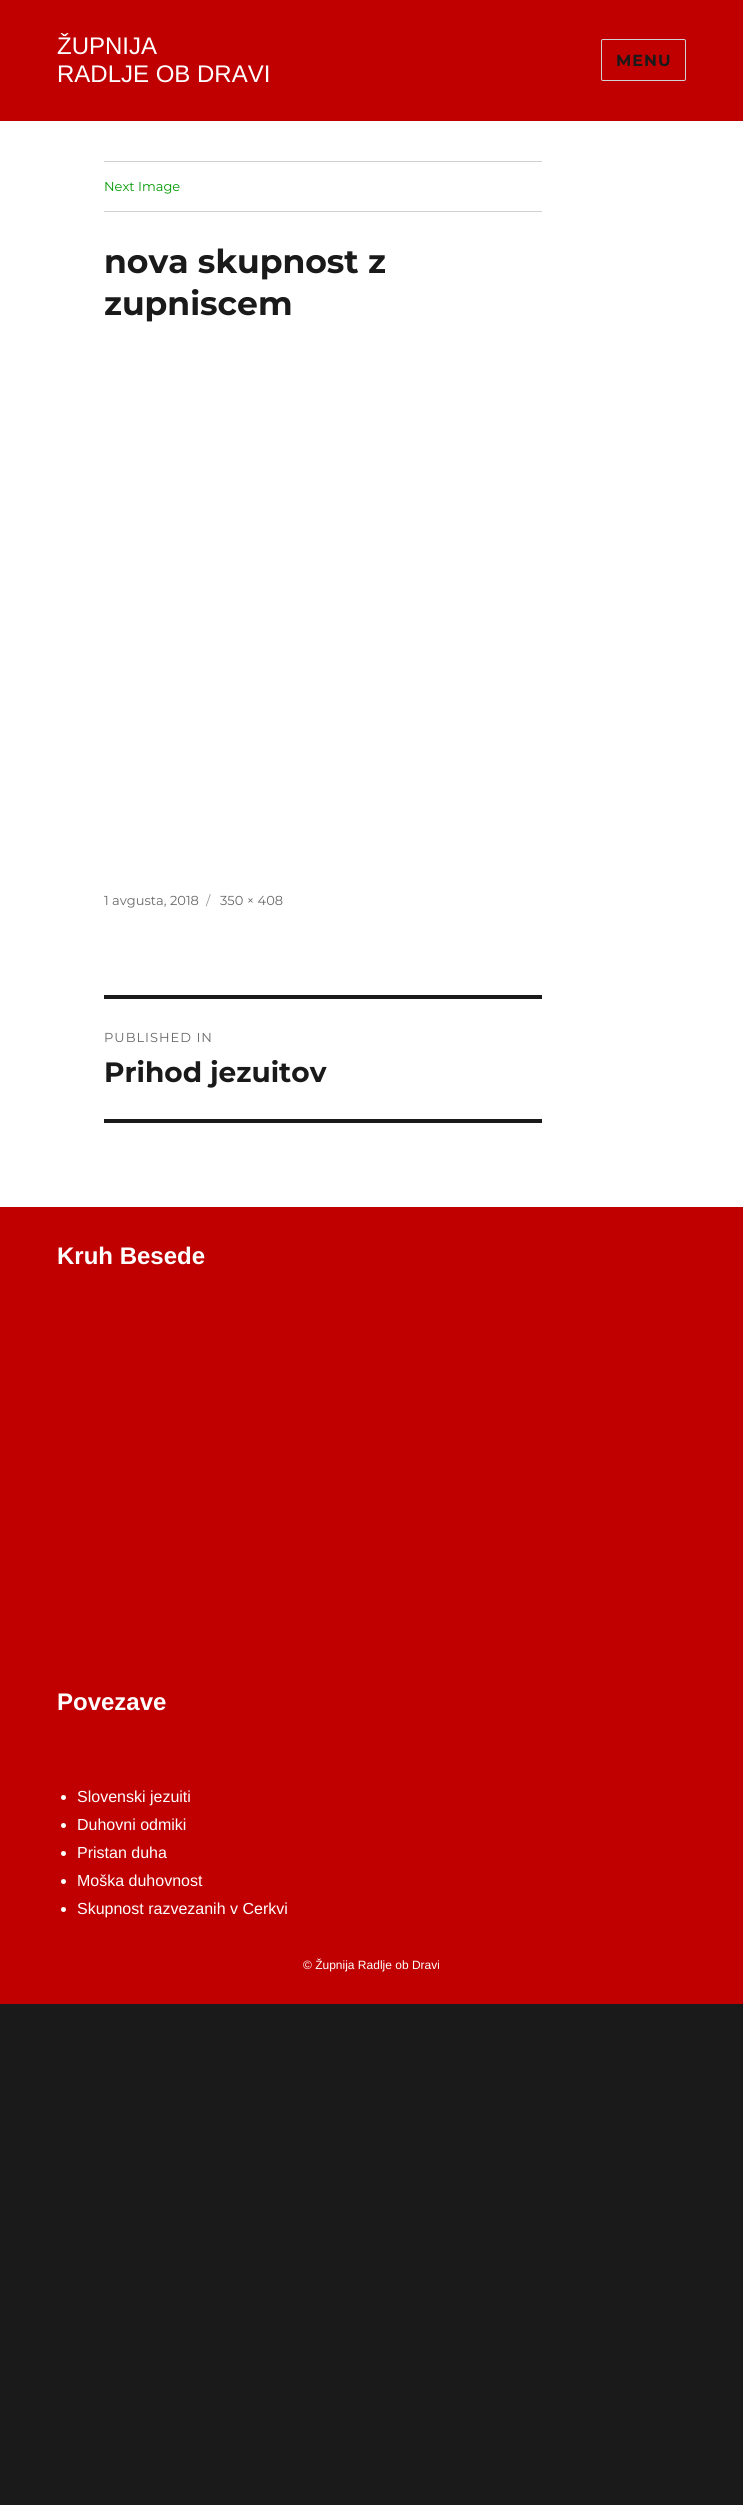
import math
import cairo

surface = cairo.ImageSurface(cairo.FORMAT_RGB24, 743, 2505)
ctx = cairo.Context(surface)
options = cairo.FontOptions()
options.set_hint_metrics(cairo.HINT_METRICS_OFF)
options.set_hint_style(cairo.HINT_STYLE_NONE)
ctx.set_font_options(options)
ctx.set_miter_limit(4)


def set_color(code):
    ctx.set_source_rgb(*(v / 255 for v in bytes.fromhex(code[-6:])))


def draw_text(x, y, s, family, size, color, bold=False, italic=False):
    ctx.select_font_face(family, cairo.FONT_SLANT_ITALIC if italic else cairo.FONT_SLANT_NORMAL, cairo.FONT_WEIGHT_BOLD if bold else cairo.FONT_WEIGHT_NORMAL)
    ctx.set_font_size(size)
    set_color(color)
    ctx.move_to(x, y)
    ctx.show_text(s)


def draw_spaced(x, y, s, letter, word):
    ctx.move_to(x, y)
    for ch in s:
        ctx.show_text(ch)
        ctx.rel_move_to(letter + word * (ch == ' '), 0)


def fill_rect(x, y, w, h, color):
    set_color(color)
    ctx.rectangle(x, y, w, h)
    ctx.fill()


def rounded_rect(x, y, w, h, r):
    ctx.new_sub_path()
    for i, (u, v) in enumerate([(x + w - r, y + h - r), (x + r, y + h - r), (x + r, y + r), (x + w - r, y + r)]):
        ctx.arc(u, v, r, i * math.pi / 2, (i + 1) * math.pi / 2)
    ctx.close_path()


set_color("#1a1a1a")
ctx.paint()
fill_rect(0, 121, 743, 1086, "#ffffff")
fill_rect(0, 0, 743, 121, "#c00000")
draw_text(57, 54, "ŽUPNIJA", "Liberation Sans", 24, "#ffffff")
draw_text(57, 82, "RADLJE OB DRAVI", "Liberation Sans", 24, "#ffffff")
rounded_rect(601.5, 39.5, 84, 41, 1.5)
set_color("#d1d1d1")
ctx.set_line_width(1)
ctx.stroke()
ctx.select_font_face("Montserrat", cairo.FONT_SLANT_NORMAL, cairo.FONT_WEIGHT_BOLD)
ctx.set_font_size(16)
set_color("#1a1a1a")
draw_spaced(616, 66, "MENU", 1, 0)
fill_rect(104, 161, 438, 1, "#d1d1d1")
fill_rect(104, 211, 438, 1, "#d1d1d1")
draw_text(104, 191, "Next Image", "Montserrat", 13, "#009901")
draw_text(104, 273, "nova skupnost z", "Montserrat", 33, "#1a1a1a", bold=True)
draw_text(104, 315, "zupniscem", "Montserrat", 33, "#1a1a1a", bold=True)
draw_text(104, 905, "1 avgusta, 2018", "Montserrat", 13, "#686868")
draw_text(206, 905, "/", "Montserrat", 13, "#959595")
draw_text(220, 905, "350 × 408", "Montserrat", 13, "#686868")
fill_rect(104, 995, 438, 4, "#1a1a1a")
fill_rect(104, 1119, 438, 4, "#1a1a1a")
set_color("#686868")
draw_spaced(104, 1042, "PUBLISHED IN", 1, 0)
draw_text(104, 1082, "Prihod jezuitov", "Montserrat", 28, "#1a1a1a", bold=True)
fill_rect(0, 1207, 743, 797, "#c00000")
draw_text(57, 1264, "Kruh Besede", "Liberation Sans", 24, "#ffffff", bold=True)
draw_text(57, 1710, "Povezave", "Liberation Sans", 24, "#ffffff", bold=True)
ctx.new_path()
ctx.arc(63.5, 1797.5, 2.5, 0, 2 * math.pi)
ctx.fill()
draw_text(77, 1802, "Slovenski jezuiti", "Liberation Sans", 16, "#ffffff")
ctx.new_path()
ctx.arc(63.5, 1825.5, 2.5, 0, 2 * math.pi)
ctx.fill()
draw_text(77, 1830, "Duhovni odmiki", "Liberation Sans", 16, "#ffffff")
ctx.new_path()
ctx.arc(63.5, 1853.5, 2.5, 0, 2 * math.pi)
ctx.fill()
draw_text(77, 1858, "Pristan duha", "Liberation Sans", 16, "#ffffff")
ctx.new_path()
ctx.arc(63.5, 1881.5, 2.5, 0, 2 * math.pi)
ctx.fill()
draw_text(77, 1886, "Moška duhovnost", "Liberation Sans", 16, "#ffffff")
ctx.new_path()
ctx.arc(63.5, 1909.5, 2.5, 0, 2 * math.pi)
ctx.fill()
draw_text(77, 1914, "Skupnost razvezanih v Cerkvi", "Liberation Sans", 16, "#ffffff")
draw_text(303, 1969, "© Župnija Radlje ob Dravi", "Liberation Sans", 12, "#ffffff")
surface.write_to_png("output.png")
